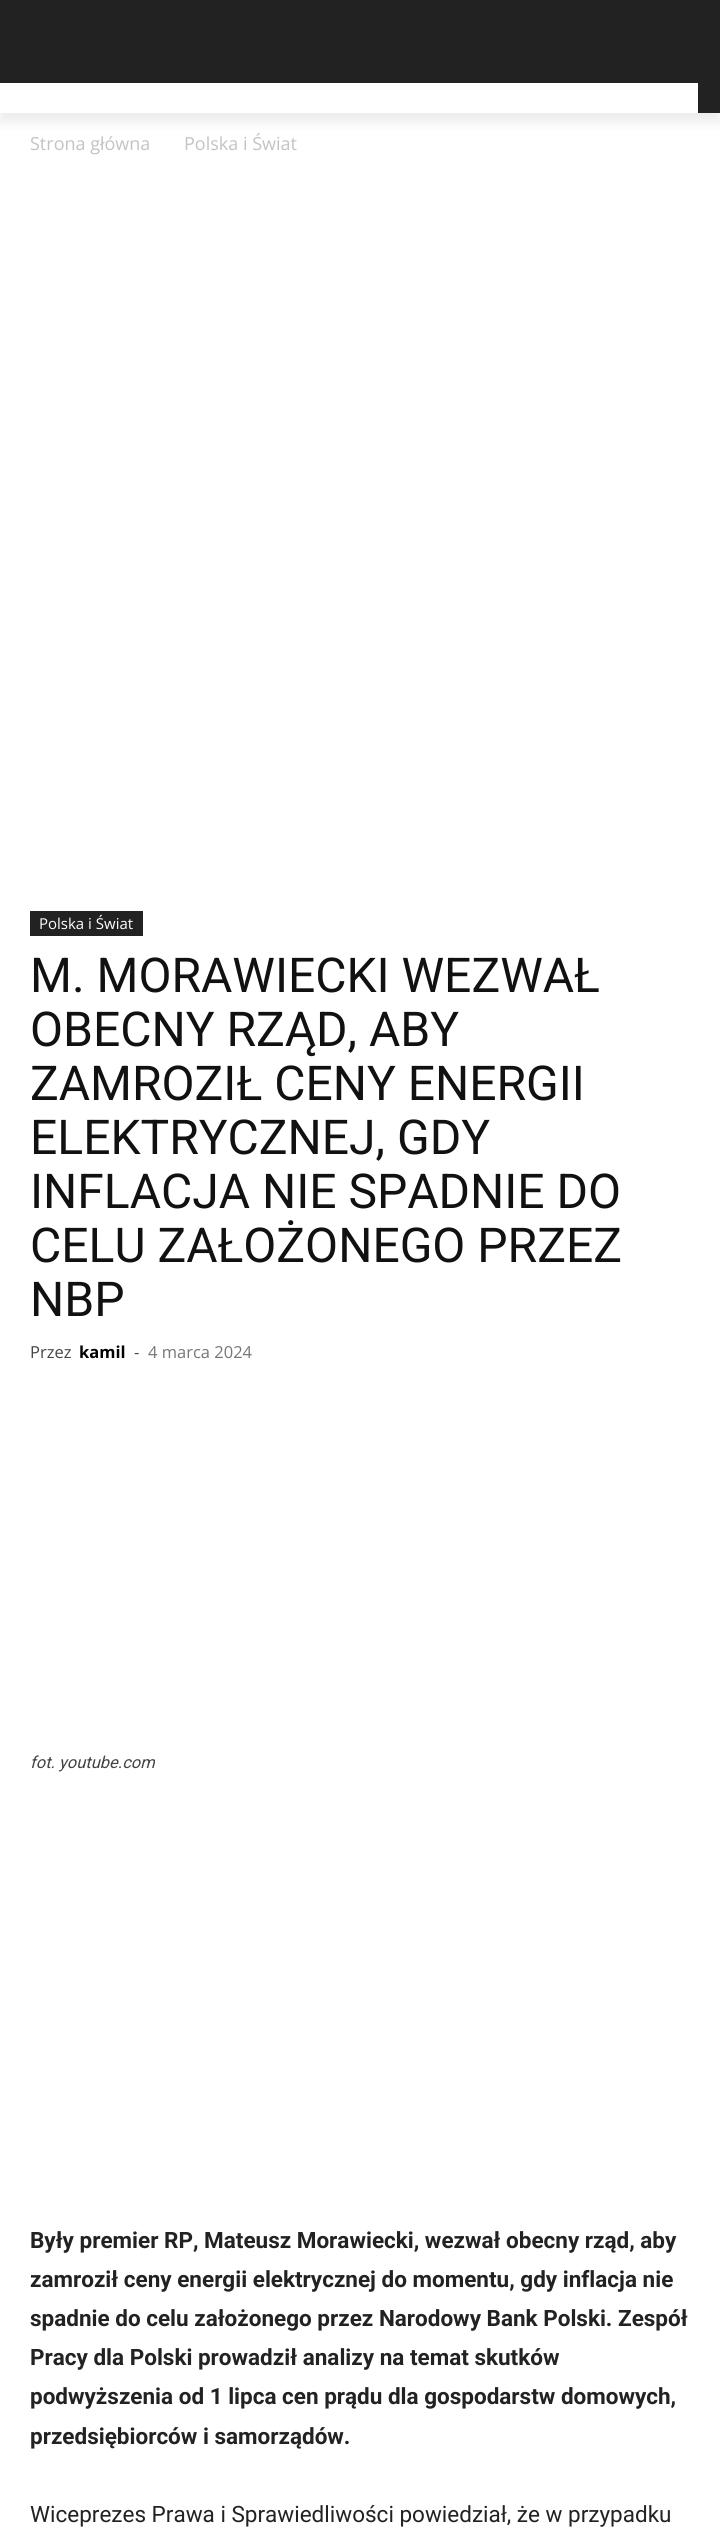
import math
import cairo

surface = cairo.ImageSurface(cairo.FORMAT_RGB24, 720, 2528)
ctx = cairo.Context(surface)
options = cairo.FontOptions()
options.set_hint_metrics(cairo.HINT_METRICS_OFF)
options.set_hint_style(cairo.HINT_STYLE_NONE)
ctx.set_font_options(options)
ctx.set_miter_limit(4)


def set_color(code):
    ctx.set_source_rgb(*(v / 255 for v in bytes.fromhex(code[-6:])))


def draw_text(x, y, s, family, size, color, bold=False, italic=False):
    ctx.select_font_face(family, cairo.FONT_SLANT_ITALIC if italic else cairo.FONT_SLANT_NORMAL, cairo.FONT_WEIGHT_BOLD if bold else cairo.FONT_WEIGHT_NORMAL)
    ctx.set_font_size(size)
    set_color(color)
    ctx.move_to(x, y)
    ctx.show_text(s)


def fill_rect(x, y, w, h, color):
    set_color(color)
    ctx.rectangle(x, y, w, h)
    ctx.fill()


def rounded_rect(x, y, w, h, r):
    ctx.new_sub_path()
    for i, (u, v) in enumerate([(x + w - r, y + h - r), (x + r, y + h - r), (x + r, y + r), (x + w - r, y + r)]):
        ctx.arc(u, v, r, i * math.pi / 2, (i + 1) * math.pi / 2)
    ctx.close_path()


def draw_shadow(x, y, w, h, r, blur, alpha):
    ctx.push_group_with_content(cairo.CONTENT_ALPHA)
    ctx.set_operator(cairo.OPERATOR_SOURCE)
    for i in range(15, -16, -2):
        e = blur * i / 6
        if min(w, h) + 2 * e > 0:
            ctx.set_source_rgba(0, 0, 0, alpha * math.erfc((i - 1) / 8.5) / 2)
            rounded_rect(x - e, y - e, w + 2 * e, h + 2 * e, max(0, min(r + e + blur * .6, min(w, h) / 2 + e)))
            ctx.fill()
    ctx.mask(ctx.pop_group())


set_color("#ffffff")
ctx.paint()
fill_rect(0, 0, 720, 113, "#222222")
fill_rect(0, 83, 698, 30, "#ffffff")
ctx.save()
ctx.set_fill_rule(cairo.FILL_RULE_EVEN_ODD)
ctx.new_path()
ctx.move_to(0, 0)
ctx.line_to(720, 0)
ctx.line_to(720, 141)
ctx.line_to(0, 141)
ctx.close_path()
ctx.move_to(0, 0)
ctx.line_to(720, 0)
ctx.line_to(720, 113)
ctx.line_to(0, 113)
ctx.close_path()
ctx.clip()
set_color("#000000")
draw_shadow(0, 9, 720, 113, 0, 6, 0.08)
ctx.restore()
draw_text(30, 150, "Strona główna", "Open Sans", 18, "#c3c3c3")
draw_text(184, 150, "Polska i Świat", "Open Sans", 18, "#c3c3c3")
fill_rect(30, 911, 113, 25, "#222222")
draw_text(39, 929, "Polska i Świat", "Open Sans", 15, "#ffffff")
draw_text(30, 992, "M. MORAWIECKI WEZWAŁ", "Roboto", 48, "#111111")
draw_text(30, 1046, "OBECNY RZĄD, ABY", "Roboto", 48, "#111111")
draw_text(30, 1100, "ZAMROZIŁ CENY ENERGII", "Roboto", 48, "#111111")
draw_text(30, 1154, "ELEKTRYCZNEJ, GDY", "Roboto", 48, "#111111")
draw_text(30, 1208, "INFLACJA NIE SPADNIE DO", "Roboto", 48, "#111111")
draw_text(30, 1262, "CELU ZAŁOŻONEGO PRZEZ", "Roboto", 48, "#111111")
draw_text(30, 1316, "NBP", "Roboto", 48, "#111111")
draw_text(30, 1358, "Przez", "Open Sans", 16.5, "#444444")
draw_text(79, 1358, "kamil", "Open Sans", 16.5, "#000000", bold=True)
draw_text(134, 1358, "-", "Open Sans", 16.5, "#444444")
draw_text(148, 1358, "4 marca 2024", "Open Sans", 16.5, "#767676")
draw_text(30, 1768, "fot. youtube.com", "Roboto", 16.5, "#444444", italic=True)
draw_text(30, 2248, "Były premier RP, Mateusz Morawiecki, wezwał obecny rząd, aby", "Roboto", 22.5, "#222222", bold=True)
draw_text(30, 2287, "zamroził ceny energii elektrycznej do momentu, gdy inflacja nie", "Roboto", 22.5, "#222222", bold=True)
draw_text(30, 2326, "spadnie do celu założonego przez Narodowy Bank Polski. Zespół", "Roboto", 22.5, "#222222", bold=True)
draw_text(30, 2365, "Pracy dla Polski prowadził analizy na temat skutków", "Roboto", 22.5, "#222222", bold=True)
draw_text(30, 2404, "podwyższenia od 1 lipca cen prądu dla gospodarstw domowych,", "Roboto", 22.5, "#222222", bold=True)
draw_text(30, 2444, "przedsiębiorców i samorządów.", "Roboto", 22.5, "#222222", bold=True)
draw_text(30, 2522, "Wiceprezes Prawa i Sprawiedliwości powiedział, że w przypadku", "Roboto", 22.5, "#222222")
surface.write_to_png("output.png")
